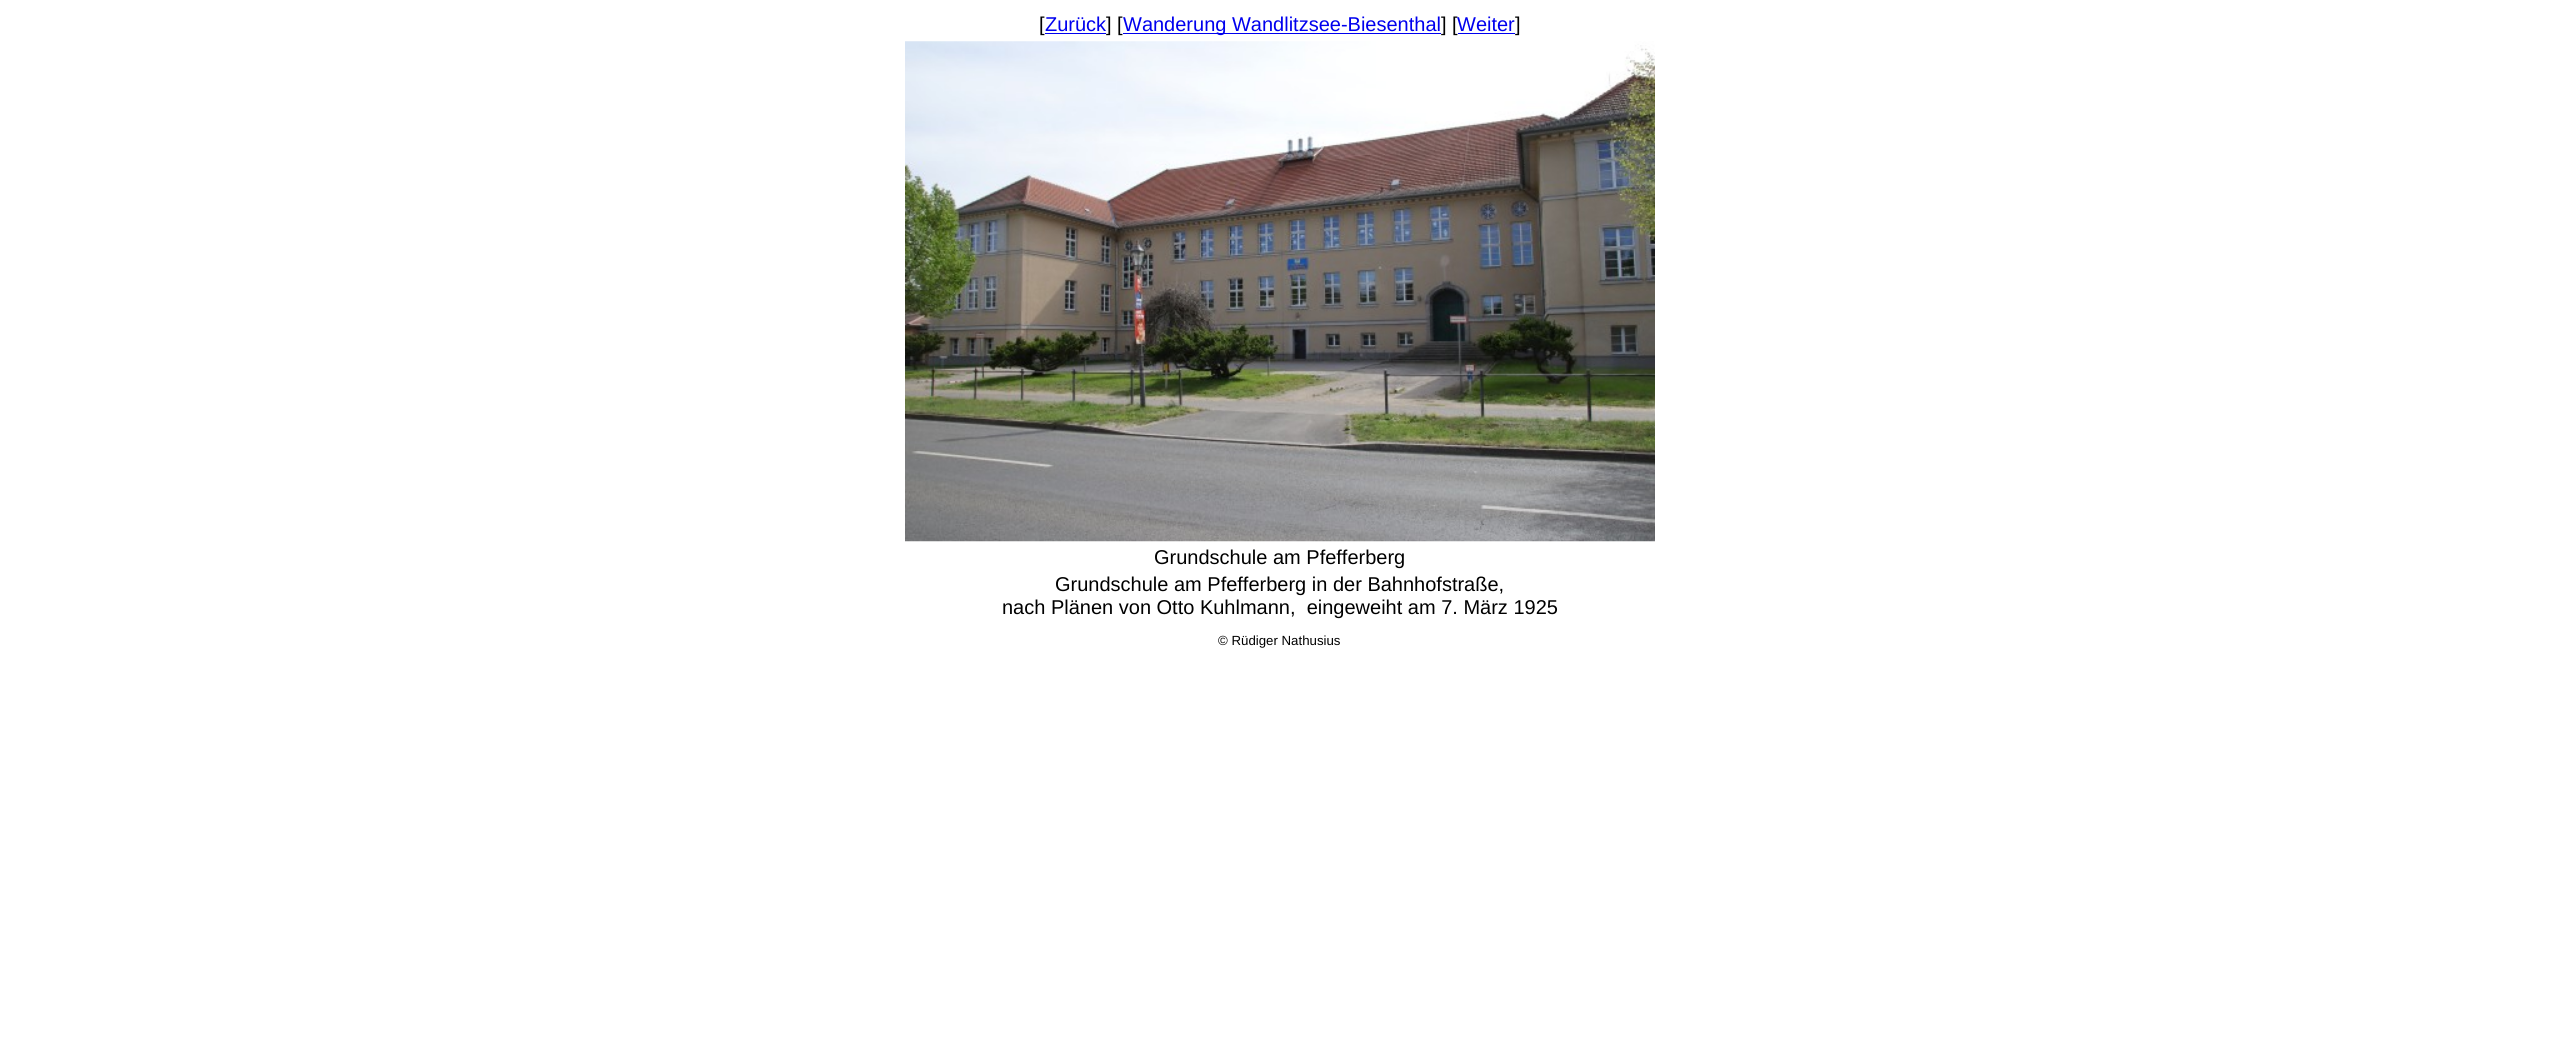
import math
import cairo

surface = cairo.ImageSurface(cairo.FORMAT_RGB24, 2559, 1061)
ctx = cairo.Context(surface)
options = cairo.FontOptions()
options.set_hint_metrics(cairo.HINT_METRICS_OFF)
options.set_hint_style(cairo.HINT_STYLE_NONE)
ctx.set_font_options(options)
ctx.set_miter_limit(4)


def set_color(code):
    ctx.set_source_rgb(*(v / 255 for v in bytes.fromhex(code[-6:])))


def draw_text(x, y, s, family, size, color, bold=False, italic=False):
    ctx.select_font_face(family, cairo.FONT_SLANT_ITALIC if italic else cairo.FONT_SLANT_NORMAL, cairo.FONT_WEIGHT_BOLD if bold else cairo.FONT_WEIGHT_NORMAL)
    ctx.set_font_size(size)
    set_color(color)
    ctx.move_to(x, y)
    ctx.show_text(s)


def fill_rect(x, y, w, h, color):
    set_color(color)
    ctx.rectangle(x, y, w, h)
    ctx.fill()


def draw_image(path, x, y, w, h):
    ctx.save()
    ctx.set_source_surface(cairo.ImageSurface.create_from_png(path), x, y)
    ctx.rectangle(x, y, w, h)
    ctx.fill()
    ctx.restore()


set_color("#ffffff")
ctx.paint()
draw_text(1039, 31, "[", "Liberation Sans", 20, "#000000")
fill_rect(1045, 33, 61, 1, "#0000ee")
draw_text(1045, 31, "Zurück", "Liberation Sans", 20, "#0000ee")
draw_text(1106, 31, "] [", "Liberation Sans", 20, "#000000")
fill_rect(1123, 33, 318, 1, "#0000ee")
draw_text(1123, 31, "Wanderung Wandlitzsee-Biesenthal", "Liberation Sans", 20, "#0000ee")
draw_text(1441, 31, "] [", "Liberation Sans", 20, "#000000")
fill_rect(1458, 33, 57, 1, "#0000ee")
draw_text(1457, 31, "Weiter", "Liberation Sans", 20, "#0000ee")
draw_text(1515, 31, "]", "Liberation Sans", 20, "#000000")
draw_image("assets/img1.png", 905, 41, 750, 501)
draw_text(1154, 564, "Grundschule am Pfefferberg", "Liberation Sans", 20, "#000000")
draw_text(1055, 591, "Grundschule am Pfefferberg in der Bahnhofstraße,", "Liberation Sans", 20, "#000000")
draw_text(1002, 614, "nach Plänen von Otto Kuhlmann,  eingeweiht am 7. März 1925", "Liberation Sans", 20, "#000000")
draw_text(1218, 645, "© Rüdiger Nathusius", "Liberation Sans", 13.25, "#000000")
surface.write_to_png("output.png")
